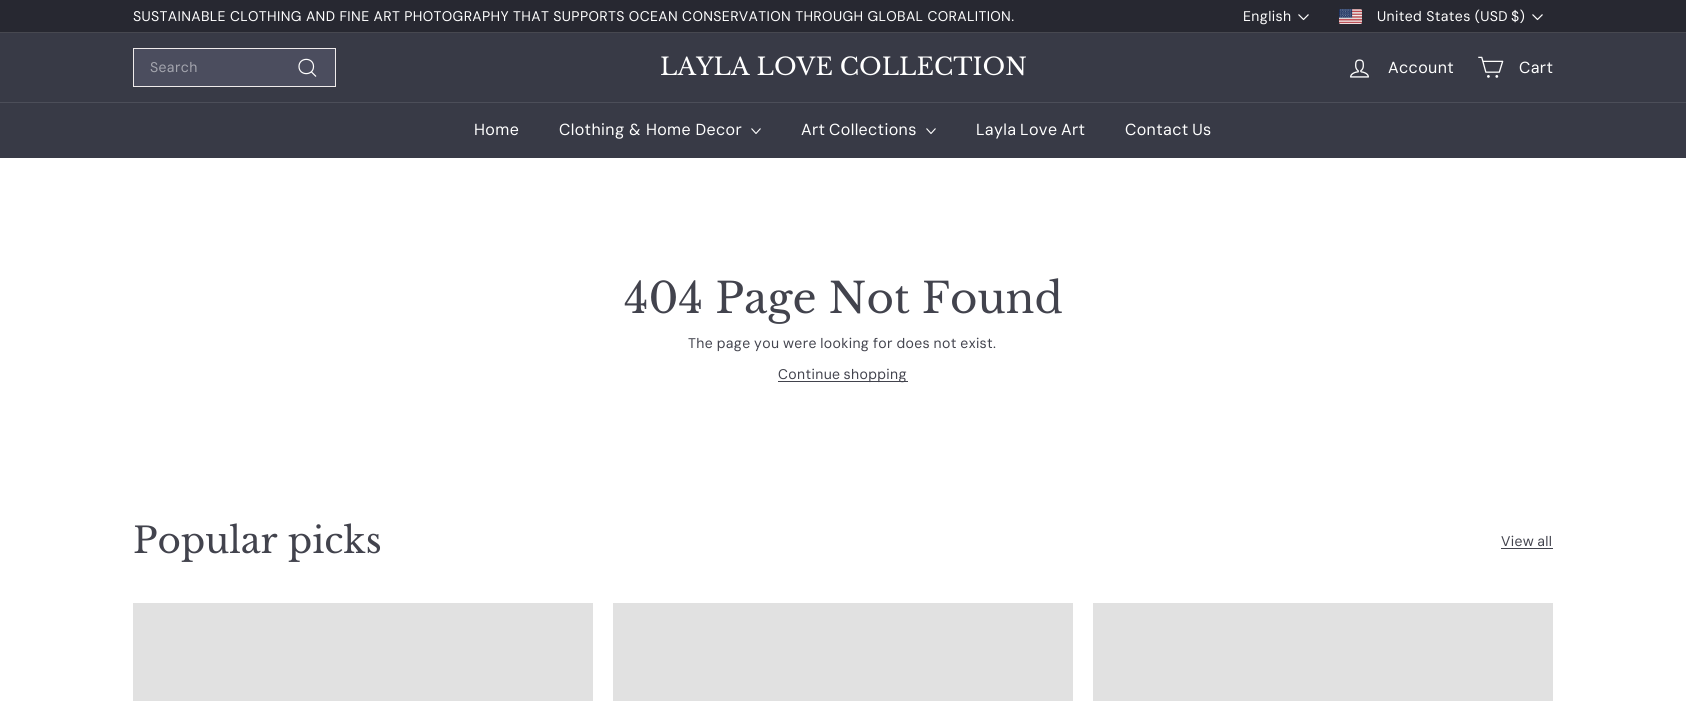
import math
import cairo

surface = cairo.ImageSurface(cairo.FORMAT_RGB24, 1686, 701)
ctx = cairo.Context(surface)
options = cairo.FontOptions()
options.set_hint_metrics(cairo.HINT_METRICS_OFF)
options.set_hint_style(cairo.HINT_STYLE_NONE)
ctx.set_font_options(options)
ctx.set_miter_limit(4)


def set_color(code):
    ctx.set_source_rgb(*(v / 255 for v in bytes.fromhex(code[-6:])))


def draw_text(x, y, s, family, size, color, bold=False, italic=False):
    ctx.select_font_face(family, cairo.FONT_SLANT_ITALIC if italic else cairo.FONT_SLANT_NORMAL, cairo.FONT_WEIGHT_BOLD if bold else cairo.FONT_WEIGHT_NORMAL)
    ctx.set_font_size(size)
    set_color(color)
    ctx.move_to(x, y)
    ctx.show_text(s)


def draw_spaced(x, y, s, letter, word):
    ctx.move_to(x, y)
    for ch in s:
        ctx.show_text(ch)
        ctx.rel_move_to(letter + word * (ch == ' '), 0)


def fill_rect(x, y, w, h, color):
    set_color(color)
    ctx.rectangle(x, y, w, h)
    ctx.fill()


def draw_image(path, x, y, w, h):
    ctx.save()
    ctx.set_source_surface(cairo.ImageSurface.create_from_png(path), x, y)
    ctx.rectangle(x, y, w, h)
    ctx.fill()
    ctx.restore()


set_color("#ffffff")
ctx.paint()
fill_rect(0, 0, 1686, 32, "#272831")
ctx.select_font_face("DM Sans")
ctx.set_font_size(14)
set_color("#ffffff")
draw_spaced(133, 21, "SUSTAINABLE CLOTHING AND FINE ART PHOTOGRAPHY THAT SUPPORTS OCEAN CONSERVATION THROUGH GLOBAL CORALITION.", 0.35, 0)
draw_spaced(1243, 21, "English", 0.35, 0)
ctx.new_path()
ctx.move_to(1298.5, 14.5)
ctx.line_to(1303.5, 19.5)
ctx.line_to(1308.5, 14.5)
ctx.set_line_width(1.2)
ctx.set_line_join(cairo.LINE_JOIN_ROUND)
ctx.stroke()
draw_image("assets/img1.png", 1339, 9, 23, 15)
draw_image("assets/img2.png", 1339, 9, 23, 15)
draw_spaced(1377, 21, "United States (USD", 0.35, 0)
draw_spaced(1511, 21, "$)", 0.35, 0)
ctx.new_path()
ctx.move_to(1532.5, 14.5)
ctx.line_to(1537.5, 19.5)
ctx.line_to(1542.5, 14.5)
ctx.stroke()
fill_rect(0, 32, 1686, 1, "#474850")
fill_rect(0, 33, 1686, 69, "#383a46")
set_color("#4b4d5e")
ctx.rectangle(133.5, 48.5, 202, 38)
ctx.fill_preserve()
set_color("#efebeb")
ctx.set_line_width(1)
ctx.set_line_join(cairo.LINE_JOIN_MITER)
ctx.stroke()
set_color("#a5a6af")
draw_spaced(150, 72, "Search", 0.35, 0)
ctx.new_path()
ctx.move_to(313.5, 66.5)
ctx.curve_to(313.5, 76, 299, 76, 299, 66.5)
ctx.curve_to(299, 57, 313.5, 57, 313.5, 66.5)
ctx.move_to(316, 76.5)
ctx.line_to(311.5, 72)
set_color("#ffffff")
ctx.set_line_width(1.2)
ctx.set_line_join(cairo.LINE_JOIN_ROUND)
ctx.stroke()
draw_text(660, 75, "LAYLA LOVE COLLECTION", "Libre Baskerville", 24, "#ffffff")
draw_image("assets/img3.png", 1350, 59, 19, 19)
ctx.select_font_face("DM Sans")
ctx.set_font_size(16)
draw_spaced(1388, 73, "Account", 0.35, 0)
draw_image("assets/img4.png", 1478, 56, 26, 22)
draw_spaced(1519, 73, "Cart", 0.35, 0)
fill_rect(0, 102, 1686, 1, "#4c4e59")
fill_rect(0, 103, 1686, 55, "#383a46")
set_color("#ffffff")
draw_spaced(474, 135, "Home", 0.35, 0)
draw_spaced(559, 135, "Clothing & Home Decor", 0.35, 0)
ctx.new_path()
ctx.move_to(751.5, 128.5)
ctx.line_to(756, 133.5)
ctx.line_to(760.5, 128.5)
ctx.set_line_width(1.1)
ctx.stroke()
draw_spaced(801, 135, "Art Collections", 0.35, -1)
ctx.new_path()
ctx.move_to(926.5, 128.5)
ctx.line_to(931, 133.5)
ctx.line_to(935.5, 128.5)
ctx.stroke()
draw_spaced(976, 135, "Layla Love Art", 0.35, -1)
draw_spaced(1125, 135, "Contact Us", 0.35, -1)
draw_text(624, 313, "404 Page Not Found", "Libre Baskerville", 42, "#42434d")
ctx.select_font_face("DM Sans")
ctx.set_font_size(14)
draw_spaced(688, 348, "The page you were looking for does not exist.", 0.35, -0.5)
fill_rect(778, 381, 130, 1, "#42434d")
draw_spaced(778, 379, "Continue shopping", 0.35, -1)
draw_text(133, 553, "Popular picks", "Libre Baskerville", 35.75, "#42434d")
ctx.select_font_face("DM Sans")
ctx.set_font_size(14)
draw_spaced(1501, 546, "View all", 0.35, -1)
fill_rect(1501, 548, 52, 1, "#42434d")
fill_rect(133, 603, 460, 98, "#e1e1e1")
fill_rect(613, 603, 460, 98, "#e1e1e1")
fill_rect(1093, 603, 460, 98, "#e1e1e1")
surface.write_to_png("output.png")
